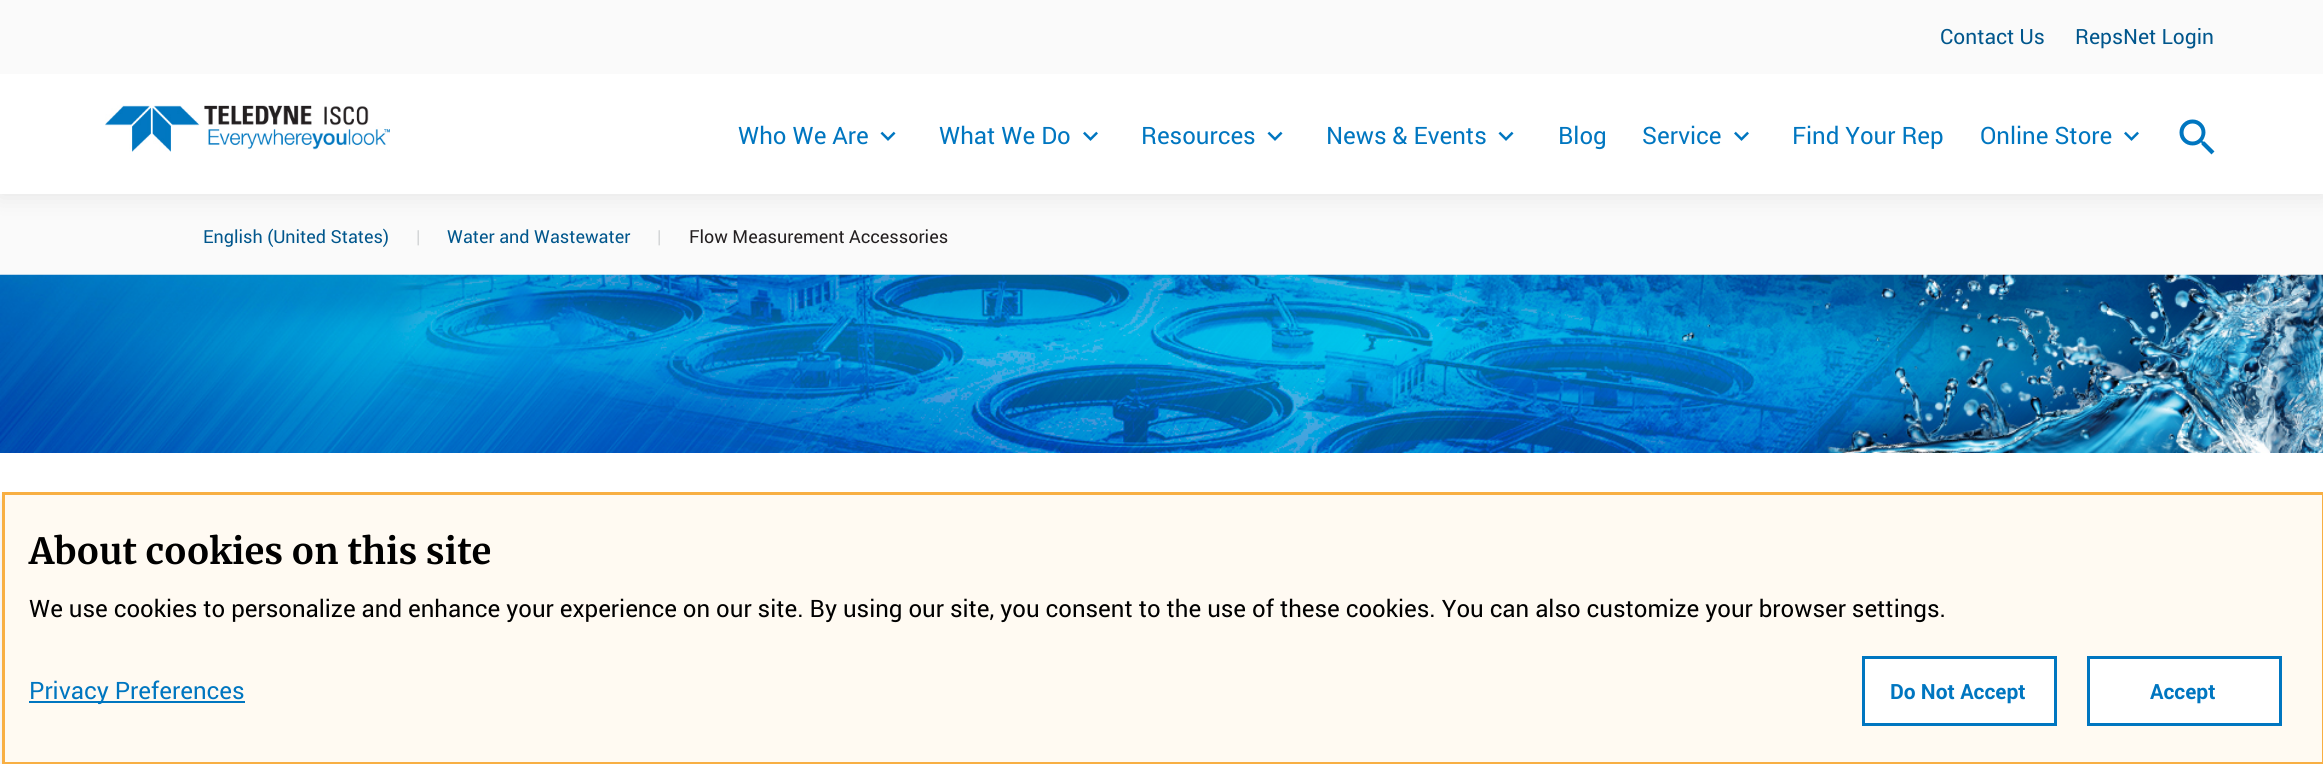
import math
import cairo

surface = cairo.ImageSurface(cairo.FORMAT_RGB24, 2323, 764)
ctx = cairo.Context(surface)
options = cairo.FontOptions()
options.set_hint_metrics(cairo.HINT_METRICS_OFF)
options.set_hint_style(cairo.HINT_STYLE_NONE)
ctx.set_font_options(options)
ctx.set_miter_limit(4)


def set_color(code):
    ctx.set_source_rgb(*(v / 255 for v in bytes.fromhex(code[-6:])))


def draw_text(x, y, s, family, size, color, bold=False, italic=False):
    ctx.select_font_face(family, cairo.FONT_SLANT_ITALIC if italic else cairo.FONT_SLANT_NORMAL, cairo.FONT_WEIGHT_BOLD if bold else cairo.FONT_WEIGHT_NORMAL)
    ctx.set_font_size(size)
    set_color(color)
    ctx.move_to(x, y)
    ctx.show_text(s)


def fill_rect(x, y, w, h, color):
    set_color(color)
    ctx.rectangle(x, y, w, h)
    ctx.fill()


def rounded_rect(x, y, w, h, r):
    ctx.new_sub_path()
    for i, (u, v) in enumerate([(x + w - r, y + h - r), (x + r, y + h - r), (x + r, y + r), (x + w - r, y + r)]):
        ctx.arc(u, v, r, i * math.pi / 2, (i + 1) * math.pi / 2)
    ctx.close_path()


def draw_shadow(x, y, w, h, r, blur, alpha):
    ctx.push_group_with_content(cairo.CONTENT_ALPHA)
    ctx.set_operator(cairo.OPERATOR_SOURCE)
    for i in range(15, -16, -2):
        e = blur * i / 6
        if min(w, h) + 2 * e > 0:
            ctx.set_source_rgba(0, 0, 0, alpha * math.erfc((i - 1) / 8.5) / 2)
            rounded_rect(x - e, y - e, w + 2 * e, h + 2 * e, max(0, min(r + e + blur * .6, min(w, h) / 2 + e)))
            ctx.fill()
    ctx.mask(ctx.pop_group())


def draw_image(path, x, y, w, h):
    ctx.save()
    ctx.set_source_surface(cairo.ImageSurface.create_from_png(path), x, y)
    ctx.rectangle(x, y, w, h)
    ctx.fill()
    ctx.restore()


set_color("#ffffff")
ctx.paint()
fill_rect(0, 194, 2323, 81, "#fafafa")
set_color("#000000")
draw_shadow(0, 0, 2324, 194, 0, 12, 0.1)
fill_rect(0, 74, 2323, 120, "#ffffff")
draw_image("assets/img1.png", 105, 105, 285, 47)
fill_rect(0, 0, 2323, 74, "#fafafa")
draw_text(1940, 44, "Contact Us", "Roboto", 21, "#00568c")
draw_text(2075, 44, "RepsNet Login", "Roboto", 21, "#00568c")
draw_text(738, 144, "Who We Are", "Roboto", 24, "#0076c0")
draw_image("assets/img2.png", 880, 131, 16, 10)
draw_text(939, 144, "What We Do", "Roboto", 24, "#0076c0")
draw_image("assets/img3.png", 1083, 131, 15, 10)
draw_text(1141, 144, "Resources", "Roboto", 24, "#0076c0")
draw_image("assets/img2.png", 1267, 131, 16, 10)
draw_text(1326, 144, "News & Events", "Roboto", 24, "#0076c0")
draw_image("assets/img2.png", 1498, 131, 16, 10)
draw_text(1558, 144, "Blog", "Roboto", 24, "#0076c0")
draw_text(1642, 144, "Service", "Roboto", 24, "#0076c0")
draw_image("assets/img3.png", 1734, 131, 15, 10)
draw_text(1792, 144, "Find Your Rep", "Roboto", 24, "#0076c0")
draw_text(1980, 144, "Online Store", "Roboto", 24, "#0076c0")
draw_image("assets/img3.png", 2124, 131, 15, 10)
draw_image("assets/img4.png", 2179, 119, 36, 36)
draw_text(203, 243, "English (United States)", "Roboto", 18, "#00568c")
draw_text(416, 243, "|", "Roboto", 18, "#d1d3d4")
draw_text(447, 243, "Water and Wastewater", "Roboto", 18, "#00568c")
draw_text(657, 243, "|", "Roboto", 18, "#d1d3d4")
draw_text(689, 243, "Flow Measurement Accessories", "Roboto", 18, "#231f20")
draw_image("assets/img5.png", 0, 274, 2323, 179)
set_color("#000000")
draw_shadow(2, 500, 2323, 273, 0, 4, 0.1)
set_color("#fffaf2")
ctx.rectangle(3.5, 493.5, 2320, 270)
ctx.fill_preserve()
set_color("#f8af43")
ctx.set_line_width(3)
ctx.stroke()
draw_text(29, 564, "About cookies on this site", "Merriweather", 36, "#000000", bold=True)
draw_text(29, 617, "We use cookies to personalize and enhance your experience on our site. By using our site, you consent to the use of these cookies. You can also customize your browser settings.", "Roboto", 24, "#000000")
fill_rect(29, 701, 216, 2, "#0076c0")
draw_text(29, 699, "Privacy Preferences", "Roboto", 24, "#0076c0")
set_color("#ffffff")
ctx.rectangle(1863.5, 657.5, 192, 67)
ctx.fill_preserve()
set_color("#0076c0")
ctx.stroke()
draw_text(1890, 699, "Do Not Accept", "Roboto", 21, "#0076c0", bold=True)
set_color("#ffffff")
ctx.rectangle(2088.5, 657.5, 192, 67)
ctx.fill_preserve()
set_color("#0076c0")
ctx.stroke()
draw_text(2150, 699, "Accept", "Roboto", 21, "#0076c0", bold=True)
surface.write_to_png("output.png")
